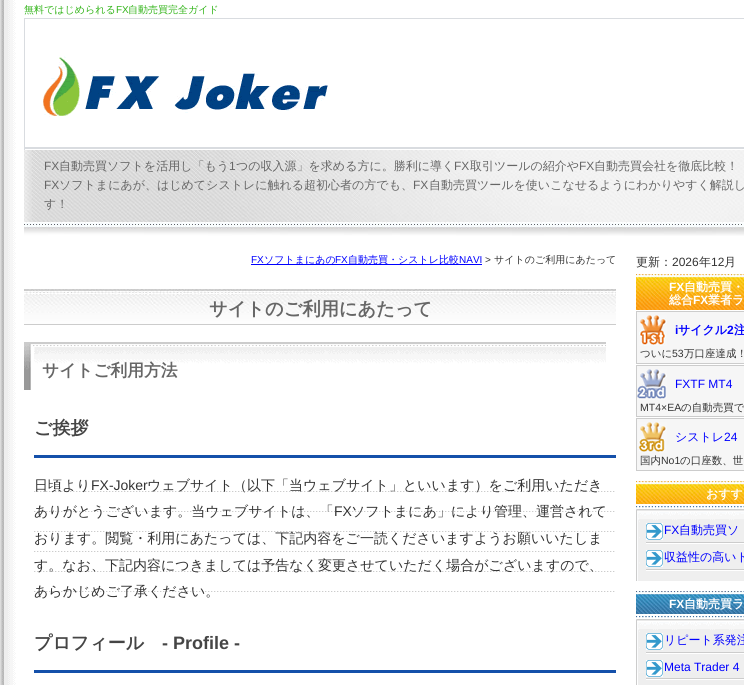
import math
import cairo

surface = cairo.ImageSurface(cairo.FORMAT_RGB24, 744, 685)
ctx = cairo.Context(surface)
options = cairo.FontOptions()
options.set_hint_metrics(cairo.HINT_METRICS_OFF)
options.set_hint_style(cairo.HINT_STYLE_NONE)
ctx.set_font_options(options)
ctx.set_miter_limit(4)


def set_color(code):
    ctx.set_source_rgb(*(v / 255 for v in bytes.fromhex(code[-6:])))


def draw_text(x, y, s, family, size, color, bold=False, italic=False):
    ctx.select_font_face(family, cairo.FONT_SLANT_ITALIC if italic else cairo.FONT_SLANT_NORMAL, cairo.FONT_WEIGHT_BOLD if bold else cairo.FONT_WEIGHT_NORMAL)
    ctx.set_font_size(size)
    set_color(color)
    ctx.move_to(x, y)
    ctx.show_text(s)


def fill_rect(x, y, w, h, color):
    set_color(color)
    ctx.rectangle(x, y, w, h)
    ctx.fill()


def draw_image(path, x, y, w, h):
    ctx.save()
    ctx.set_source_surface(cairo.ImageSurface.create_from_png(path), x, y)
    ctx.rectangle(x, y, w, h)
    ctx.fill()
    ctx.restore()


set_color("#ffffff")
ctx.paint()
draw_image("assets/img1.png", 0, 0, 16, 685)
draw_text(24, 13, "無料ではじめられる", "WenQuanYi Zen Hei Medium", 10, "#32b419")
draw_text(116, 13, "FX", "Liberation Sans", 10, "#32b419")
draw_text(128, 13, "自動売買完全ガイド", "WenQuanYi Zen Hei Medium", 10, "#32b419")
draw_image("assets/img2.png", 24, 222, 720, 14)
draw_image("assets/img3.png", 24, 18, 720, 132)
draw_image("assets/img4.png", 24, 150, 720, 72)
draw_text(44, 170, "FX", "Liberation Sans", 12, "#666666")
draw_text(59, 170, "自動売買ソフトを活用し「もう", "WenQuanYi Zen Hei Medium", 12, "#666666")
draw_text(229, 170, "1", "Liberation Sans", 12, "#666666")
draw_text(236, 170, "つの収入源」を求める方に。勝利に導く", "WenQuanYi Zen Hei Medium", 12, "#666666")
draw_text(454, 170, "FX", "Liberation Sans", 12, "#666666")
draw_text(470, 170, "取引ツールの紹介や", "WenQuanYi Zen Hei Medium", 12, "#666666")
draw_text(579, 170, "FX", "Liberation Sans", 12, "#666666")
draw_text(594, 170, "自動売買会社を徹底比較！", "WenQuanYi Zen Hei Medium", 12, "#666666")
draw_text(44, 189, "FX", "Liberation Sans", 12, "#666666")
draw_text(59, 189, "ソフトまにあが、はじめてシストレに触れる超初心者の方でも、", "WenQuanYi Zen Hei Medium", 12, "#666666")
draw_text(413, 189, "FX", "Liberation Sans", 12, "#666666")
draw_text(429, 189, "自動売買ツールを使いこなせるようにわかりやすく解説し", "WenQuanYi Zen Hei Medium", 12, "#666666")
draw_text(44, 208, "す！", "WenQuanYi Zen Hei Medium", 12, "#666666")
draw_text(251, 263, "FX", "Liberation Sans", 10, "#0000ff")
fill_rect(251, 264, 231, 1, "#0000ff")
draw_text(264, 263, "ソフトまにあの", "WenQuanYi Zen Hei Medium", 10, "#0000ff")
draw_text(335, 263, "FX", "Liberation Sans", 10, "#0000ff")
draw_text(348, 263, "自動売買・シストレ比較", "WenQuanYi Zen Hei Medium", 10, "#0000ff")
draw_text(459, 263, "NAVI", "Liberation Sans", 10, "#0000ff")
draw_text(485, 263, ">", "Liberation Sans", 10, "#333333")
draw_text(494, 263, "サイトのご利用にあたって", "WenQuanYi Zen Hei Medium", 10, "#333333")
draw_image("assets/img5.png", 24, 289, 592, 35)
fill_rect(24, 324, 592, 1, "#cccccc")
draw_text(209, 315, "サイトのご利用にあたって", "WenQuanYi Zen Hei", 18.25, "#666666", bold=True)
draw_image("assets/img6.png", 24, 342, 582, 48)
draw_text(42, 376, "サイトご利用方法", "WenQuanYi Zen Hei", 16.75, "#666666", bold=True)
fill_rect(34, 455, 582, 3, "#1450aa")
draw_text(34, 434, "ご挨拶", "WenQuanYi Zen Hei", 18, "#454545", bold=True)
draw_image("assets/img7.png", 34, 491, 581, 101)
draw_text(34, 490, "日頃より", "WenQuanYi Zen Hei Medium", 14, "#333333")
draw_text(91, 490, "FX-Joker", "Liberation Sans", 14, "#333333")
draw_text(147, 490, "ウェブサイト（以下「当ウェブサイト」といいます）をご利用いただき", "WenQuanYi Zen Hei Medium", 14, "#333333")
draw_text(34, 516, "ありがとうございます。当ウェブサイトは、「", "WenQuanYi Zen Hei Medium", 14, "#333333")
draw_text(334, 516, "FX", "Liberation Sans", 14, "#333333")
draw_text(351, 516, "ソフトまにあ」により管理、運営されて", "WenQuanYi Zen Hei Medium", 14, "#333333")
draw_text(34, 543, "おります。閲覧・利用にあたっては、下記内容をご一読くださいますようお願いいたしま", "WenQuanYi Zen Hei Medium", 14, "#333333")
draw_text(34, 570, "す。なお、下記内容につきましては予告なく変更させていただく場合がございますので、", "WenQuanYi Zen Hei Medium", 14, "#333333")
draw_text(34, 596, "あらかじめご了承ください。", "WenQuanYi Zen Hei Medium", 14, "#333333")
fill_rect(34, 670, 582, 3, "#1450aa")
draw_text(34, 649, "プロフィール", "WenQuanYi Zen Hei", 18, "#454545", bold=True)
draw_text(162, 649, "- Profile -", "Liberation Sans", 18, "#454545", bold=True)
draw_text(636, 266, "更新：", "WenQuanYi Zen Hei Medium", 12, "#333333")
draw_text(672, 266, "2026", "Liberation Sans", 12, "#333333")
draw_text(699, 266, "年", "WenQuanYi Zen Hei Medium", 12, "#333333")
draw_text(711, 266, "12", "Liberation Sans", 12, "#333333")
draw_text(724, 266, "月", "WenQuanYi Zen Hei Medium", 12, "#333333")
draw_image("assets/img8.png", 636, 274, 108, 36)
draw_text(669, 291, "FX", "Liberation Sans", 12, "#ffffff", bold=True)
draw_text(684, 291, "自動売買・", "WenQuanYi Zen Hei", 12, "#ffffff", bold=True)
draw_text(669, 304, "総合", "WenQuanYi Zen Hei", 12, "#ffffff", bold=True)
draw_text(693, 304, "FX", "Liberation Sans", 12, "#ffffff", bold=True)
draw_text(708, 304, "業者ラ", "WenQuanYi Zen Hei", 12, "#ffffff", bold=True)
fill_rect(637, 312, 107, 51, "#f6f6f6")
draw_image("assets/img9.png", 639, 315, 28, 31)
ctx.rectangle(636.5, 311.5, 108, 52)
set_color("#cccccc")
ctx.set_line_width(1)
ctx.stroke()
draw_text(675, 334, "i", "Liberation Sans", 12, "#0000ff", bold=True)
draw_text(678, 334, "サイクル", "WenQuanYi Zen Hei", 12, "#0000ff", bold=True)
draw_text(727, 334, "2", "Liberation Sans", 12, "#0000ff", bold=True)
draw_text(734, 334, "注", "WenQuanYi Zen Hei", 12, "#0000ff", bold=True)
draw_text(640, 357, "ついに", "WenQuanYi Zen Hei Medium", 10.5, "#333333")
draw_text(672, 357, "53", "Liberation Sans", 10.5, "#333333")
draw_text(684, 357, "万口座達成！", "WenQuanYi Zen Hei Medium", 10.5, "#333333")
fill_rect(637, 366, 107, 50, "#f6f6f6")
draw_image("assets/img10.png", 637, 369, 30, 31)
ctx.rectangle(636.5, 365.5, 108, 51)
set_color("#cccccc")
ctx.stroke()
draw_text(675, 388, "FXTF MT4", "Liberation Sans", 12, "#0000ff")
draw_text(640, 411, "MT4×EA", "Liberation Sans", 10.5, "#333333")
draw_text(681, 411, "の自動売買で", "WenQuanYi Zen Hei Medium", 10.5, "#333333")
fill_rect(637, 419, 107, 51, "#f6f6f6")
draw_image("assets/img11.png", 638, 422, 29, 31)
ctx.rectangle(636.5, 418.5, 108, 52)
set_color("#cccccc")
ctx.stroke()
draw_text(675, 441, "シストレ", "WenQuanYi Zen Hei Medium", 12, "#0000ff")
draw_text(724, 441, "24", "Liberation Sans", 12, "#0000ff")
draw_text(640, 464, "国内", "WenQuanYi Zen Hei Medium", 10.5, "#333333")
draw_text(661, 464, "No1", "Liberation Sans", 10.5, "#333333")
draw_text(680, 464, "の口座数、世", "WenQuanYi Zen Hei Medium", 10.5, "#333333")
draw_image("assets/img12.png", 636, 481, 108, 23)
draw_text(706, 498, "おすす", "WenQuanYi Zen Hei", 12, "#ffffff", bold=True)
draw_image("assets/img13.png", 636, 504, 108, 77)
draw_image("assets/img14.png", 646, 542, 98, 2)
draw_image("assets/img15.png", 646, 523, 17, 17)
draw_text(664, 534, "FX", "Liberation Sans", 12, "#0000ff")
draw_text(679, 534, "自動売買ソ", "WenQuanYi Zen Hei Medium", 12, "#0000ff")
draw_image("assets/img14.png", 646, 569, 98, 2)
draw_image("assets/img15.png", 646, 550, 17, 17)
draw_text(664, 561, "収益性の高いト", "WenQuanYi Zen Hei Medium", 12, "#0000ff")
draw_image("assets/img16.png", 636, 673, 108, 12)
draw_image("assets/img17.png", 636, 591, 108, 23)
draw_text(669, 608, "FX", "Liberation Sans", 12, "#ffffff", bold=True)
draw_text(684, 608, "自動売買ラ", "WenQuanYi Zen Hei", 12, "#ffffff", bold=True)
draw_image("assets/img18.png", 636, 614, 108, 59)
draw_image("assets/img14.png", 646, 652, 98, 2)
draw_image("assets/img15.png", 646, 633, 17, 17)
draw_text(664, 644, "リピート系発注", "WenQuanYi Zen Hei Medium", 12, "#0000ff")
draw_image("assets/img14.png", 646, 678, 98, 2)
draw_image("assets/img15.png", 646, 660, 17, 17)
draw_text(664, 671, "Meta Trader 4", "Liberation Sans", 12, "#0000ff")
surface.write_to_png("output.png")
